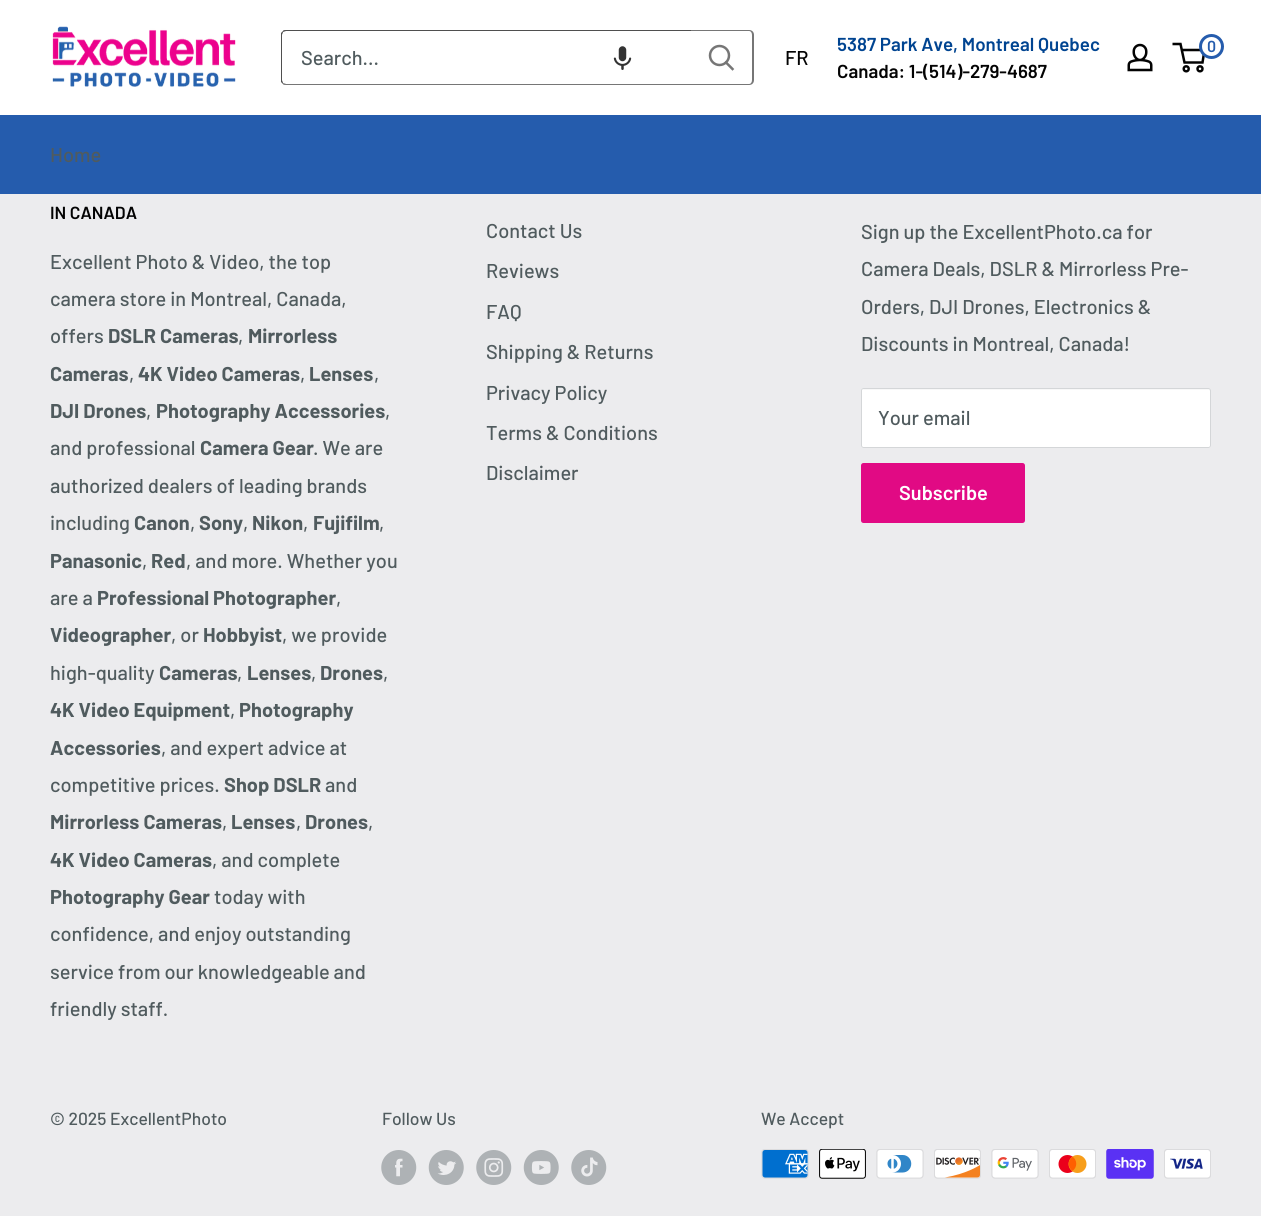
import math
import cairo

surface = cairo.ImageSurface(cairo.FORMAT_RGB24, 1261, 1216)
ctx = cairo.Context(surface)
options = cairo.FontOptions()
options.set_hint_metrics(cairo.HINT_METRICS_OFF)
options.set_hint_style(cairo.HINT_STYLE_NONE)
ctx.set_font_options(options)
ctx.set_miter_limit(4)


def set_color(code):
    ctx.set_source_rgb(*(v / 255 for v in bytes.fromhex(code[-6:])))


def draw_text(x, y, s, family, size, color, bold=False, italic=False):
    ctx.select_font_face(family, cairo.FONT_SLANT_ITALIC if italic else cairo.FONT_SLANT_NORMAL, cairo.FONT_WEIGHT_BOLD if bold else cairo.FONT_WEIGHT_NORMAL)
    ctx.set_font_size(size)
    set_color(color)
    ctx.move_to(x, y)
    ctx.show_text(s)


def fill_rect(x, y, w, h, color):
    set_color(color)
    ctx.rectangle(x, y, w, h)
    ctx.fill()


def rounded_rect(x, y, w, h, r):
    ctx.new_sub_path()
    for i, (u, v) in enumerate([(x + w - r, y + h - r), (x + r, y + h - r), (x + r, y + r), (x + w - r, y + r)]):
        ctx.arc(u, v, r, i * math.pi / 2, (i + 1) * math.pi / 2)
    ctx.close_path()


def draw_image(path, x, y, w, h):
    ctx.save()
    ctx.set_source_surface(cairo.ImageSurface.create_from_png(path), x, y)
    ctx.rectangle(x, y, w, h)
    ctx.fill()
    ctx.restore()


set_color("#ececee")
ctx.paint()
fill_rect(0, 0, 1261, 115, "#ffffff")
draw_image("assets/img1.png", 52, 26, 184, 61)
set_color("#4f4f4f")
ctx.new_path()
ctx.move_to(286, 30)
ctx.curve_to(285, 30, 283, 30, 283, 31)
ctx.line_to(283, 32)
ctx.line_to(286, 31)
ctx.line_to(691, 31)
ctx.line_to(691, 30)
ctx.close_path()
ctx.fill()
set_color("#767676")
ctx.new_path()
ctx.move_to(286, 85)
ctx.line_to(691, 85)
ctx.line_to(691, 84)
ctx.line_to(286, 84)
ctx.line_to(283, 83)
ctx.line_to(283, 84)
ctx.curve_to(283, 85, 285, 85, 286, 85)
ctx.close_path()
ctx.fill()
set_color("#4f4f4f")
ctx.new_path()
ctx.move_to(281, 33)
ctx.line_to(283, 31)
ctx.line_to(283, 32)
ctx.curve_to(283, 33, 282, 34, 282, 35)
ctx.line_to(282, 80)
ctx.curve_to(282, 81, 283, 82, 283, 83)
ctx.line_to(283, 84)
ctx.line_to(281, 82)
ctx.close_path()
ctx.fill()
draw_text(301, 65, "Search...", "Barlow Medium", 20, "#505b5e")
draw_image("assets/img2.png", 613, 46, 19, 24)
set_color("#767676")
ctx.set_fill_rule(cairo.FILL_RULE_EVEN_ODD)
ctx.new_path()
ctx.move_to(691, 30)
ctx.line_to(749, 30)
ctx.curve_to(752, 30, 754, 32, 754, 35)
ctx.line_to(754, 80)
ctx.curve_to(754, 83, 752, 85, 749, 85)
ctx.line_to(691, 85)
ctx.close_path()
ctx.move_to(691, 31)
ctx.line_to(749, 31)
ctx.curve_to(751, 31, 752, 33, 752, 35)
ctx.line_to(752, 80)
ctx.curve_to(752, 82, 751, 84, 749, 84)
ctx.line_to(691, 84)
ctx.close_path()
ctx.fill()
ctx.new_path()
ctx.move_to(732.5, 69)
ctx.line_to(726, 62.5)
ctx.set_line_width(2.5)
ctx.set_line_cap(cairo.LINE_CAP_SQUARE)
ctx.stroke()
ctx.arc(719.5, 55.5, 9.5, 0, 2 * math.pi)
ctx.set_line_cap(cairo.LINE_CAP_BUTT)
ctx.stroke()
draw_text(785, 65, "FR", "Barlow Medium", 20, "#030303")
draw_text(837, 51, "5387 Park Ave, Montreal Quebec", "Barlow SemiBold", 18.75, "#004491")
draw_text(837, 78, "Canada: 1-(514)-279-4687", "Barlow SemiBold", 18.75, "#030303")
draw_image("assets/img3.png", 1127, 43, 26, 29)
ctx.arc(1186.2, 68.8, 2.5, 0, 2 * math.pi)
ctx.stroke()
ctx.arc(1200, 68.8, 2.5, 0, 2 * math.pi)
ctx.stroke()
ctx.new_path()
ctx.move_to(1181.5, 50)
ctx.line_to(1204.5, 50)
ctx.line_to(1202.5, 62.5)
ctx.line_to(1184.5, 62.5)
ctx.line_to(1180.5, 44)
ctx.line_to(1172.5, 44)
ctx.stroke()
set_color("#ffffff")
ctx.arc(1211.5, 46.5, 11, 0, 2 * math.pi)
ctx.fill_preserve()
set_color("#255cad")
ctx.set_line_width(3)
ctx.stroke()
draw_text(1207, 52, "0", "Barlow SemiBold", 16, "#255cad")
fill_rect(0, 115, 1261, 79, "#255cad")
draw_text(50, 162, "Home", "Barlow Medium", 20, "#505b5e")
draw_text(50, 219, "IN CANADA", "Barlow SemiBold", 17.5, "#030303")
draw_text(50, 269, "Excellent Photo & Video, the top", "Barlow Medium", 20, "#505b5e")
draw_text(50, 306, "camera store in Montreal, Canada,", "Barlow Medium", 20, "#505b5e")
draw_text(50, 343, "offers", "Barlow Medium", 20, "#505b5e")
draw_text(108, 343, "DSLR Cameras", "Barlow", 20, "#505b5e", bold=True)
draw_text(238, 343, ",", "Barlow Medium", 20, "#505b5e")
draw_text(248, 343, "Mirrorless", "Barlow", 20, "#505b5e", bold=True)
draw_text(50, 381, "Cameras", "Barlow", 20, "#505b5e", bold=True)
draw_text(129, 381, ",", "Barlow Medium", 20, "#505b5e")
draw_text(138, 381, "4K Video Cameras", "Barlow", 20, "#505b5e", bold=True)
draw_text(300, 381, ",", "Barlow Medium", 20, "#505b5e")
draw_text(309, 381, "Lenses", "Barlow", 20, "#505b5e", bold=True)
draw_text(374, 381, ",", "Barlow Medium", 20, "#505b5e")
draw_text(50, 418, "DJI Drones", "Barlow", 20, "#505b5e", bold=True)
draw_text(146, 418, ",", "Barlow Medium", 20, "#505b5e")
draw_text(156, 418, "Photography Accessories", "Barlow", 20, "#505b5e", bold=True)
draw_text(385, 418, ",", "Barlow Medium", 20, "#505b5e")
draw_text(50, 455, "and professional", "Barlow Medium", 20, "#505b5e")
draw_text(200, 455, "Camera Gear", "Barlow", 20, "#505b5e", bold=True)
draw_text(313, 455, ". We are", "Barlow Medium", 20, "#505b5e")
draw_text(50, 493, "authorized dealers of leading brands", "Barlow Medium", 20, "#505b5e")
draw_text(50, 530, "including", "Barlow Medium", 20, "#505b5e")
draw_text(134, 530, "Canon", "Barlow", 20, "#505b5e", bold=True)
draw_text(190, 530, ",", "Barlow Medium", 20, "#505b5e")
draw_text(199, 530, "Sony", "Barlow", 20, "#505b5e", bold=True)
draw_text(243, 530, ",", "Barlow Medium", 20, "#505b5e")
draw_text(252, 530, "Nikon", "Barlow", 20, "#505b5e", bold=True)
draw_text(303, 530, ",", "Barlow Medium", 20, "#505b5e")
draw_text(313, 530, "Fujifilm", "Barlow", 20, "#505b5e", bold=True)
draw_text(379, 530, ",", "Barlow Medium", 20, "#505b5e")
draw_text(50, 568, "Panasonic", "Barlow", 20, "#505b5e", bold=True)
draw_text(142, 568, ",", "Barlow Medium", 20, "#505b5e")
draw_text(151, 568, "Red", "Barlow", 20, "#505b5e", bold=True)
draw_text(186, 568, ", and more. Whether you", "Barlow Medium", 20, "#505b5e")
draw_text(50, 605, "are a", "Barlow Medium", 20, "#505b5e")
draw_text(97, 605, "Professional Photographer", "Barlow", 20, "#505b5e", bold=True)
draw_text(336, 605, ",", "Barlow Medium", 20, "#505b5e")
draw_text(50, 642, "Videographer", "Barlow", 20, "#505b5e", bold=True)
draw_text(171, 642, ", or", "Barlow Medium", 20, "#505b5e")
draw_text(203, 642, "Hobbyist", "Barlow", 20, "#505b5e", bold=True)
draw_text(282, 642, ", we provide", "Barlow Medium", 20, "#505b5e")
draw_text(50, 680, "high-quality", "Barlow Medium", 20, "#505b5e")
draw_text(159, 680, "Cameras", "Barlow", 20, "#505b5e", bold=True)
draw_text(237, 680, ",", "Barlow Medium", 20, "#505b5e")
draw_text(247, 680, "Lenses", "Barlow", 20, "#505b5e", bold=True)
draw_text(311, 680, ",", "Barlow Medium", 20, "#505b5e")
draw_text(320, 680, "Drones", "Barlow", 20, "#505b5e", bold=True)
draw_text(383, 680, ",", "Barlow Medium", 20, "#505b5e")
draw_text(50, 717, "4K Video Equipment", "Barlow", 20, "#505b5e", bold=True)
draw_text(230, 717, ",", "Barlow Medium", 20, "#505b5e")
draw_text(239, 717, "Photography", "Barlow", 20, "#505b5e", bold=True)
draw_text(50, 755, "Accessories", "Barlow", 20, "#505b5e", bold=True)
draw_text(161, 755, ", and expert advice at", "Barlow Medium", 20, "#505b5e")
draw_text(50, 792, "competitive prices.", "Barlow Medium", 20, "#505b5e")
draw_text(224, 792, "Shop DSLR", "Barlow", 20, "#505b5e", bold=True)
draw_text(325, 792, "and", "Barlow Medium", 20, "#505b5e")
draw_text(50, 829, "Mirrorless Cameras", "Barlow", 20, "#505b5e", bold=True)
draw_text(222, 829, ",", "Barlow Medium", 20, "#505b5e")
draw_text(231, 829, "Lenses", "Barlow", 20, "#505b5e", bold=True)
draw_text(296, 829, ",", "Barlow Medium", 20, "#505b5e")
draw_text(305, 829, "Drones", "Barlow", 20, "#505b5e", bold=True)
draw_text(368, 829, ",", "Barlow Medium", 20, "#505b5e")
draw_text(50, 867, "4K Video Cameras", "Barlow", 20, "#505b5e", bold=True)
draw_text(212, 867, ", and complete", "Barlow Medium", 20, "#505b5e")
draw_text(50, 904, "Photography Gear", "Barlow", 20, "#505b5e", bold=True)
draw_text(214, 904, "today with", "Barlow Medium", 20, "#505b5e")
draw_text(50, 941, "confidence, and enjoy outstanding", "Barlow Medium", 20, "#505b5e")
draw_text(50, 979, "service from our knowledgeable and", "Barlow Medium", 20, "#505b5e")
draw_text(50, 1016, "friendly staff.", "Barlow Medium", 20, "#505b5e")
draw_text(486, 238, "Contact Us", "Barlow Medium", 20, "#505b5e")
draw_text(486, 278, "Reviews", "Barlow Medium", 20, "#505b5e")
draw_text(486, 319, "FAQ", "Barlow Medium", 20, "#505b5e")
draw_text(486, 359, "Shipping & Returns", "Barlow Medium", 20, "#505b5e")
draw_text(486, 400, "Privacy Policy", "Barlow Medium", 20, "#505b5e")
draw_text(486, 440, "Terms & Conditions", "Barlow Medium", 20, "#505b5e")
draw_text(486, 480, "Disclaimer", "Barlow Medium", 20, "#505b5e")
draw_text(861, 239, "Sign up the ExcellentPhoto.ca for", "Barlow Medium", 20, "#505b5e")
draw_text(861, 276, "Camera Deals, DSLR & Mirrorless Pre-", "Barlow Medium", 20, "#505b5e")
draw_text(861, 314, "Orders, DJI Drones, Electronics &", "Barlow Medium", 20, "#505b5e")
draw_text(861, 351, "Discounts in Montreal, Canada!", "Barlow Medium", 20, "#505b5e")
set_color("#ffffff")
rounded_rect(861, 388, 350, 60, 2.5)
ctx.fill()
set_color("#f8f8f8")
ctx.set_fill_rule(cairo.FILL_RULE_WINDING)
ctx.new_path()
ctx.move_to(864, 390)
ctx.line_to(1209, 390)
ctx.line_to(1210, 391)
ctx.line_to(1210, 389)
ctx.line_to(864, 389)
ctx.curve_to(863, 389, 863, 390, 863, 390)
ctx.close_path()
ctx.fill()
rounded_rect(861.5, 388.5, 349, 59, 2)
set_color("#d4d6d8")
ctx.set_line_width(1)
ctx.stroke()
draw_text(878, 425, "Your email", "Barlow Medium", 20, "#505b5e")
set_color("#e10a84")
rounded_rect(861, 463, 164, 60, 2.5)
ctx.fill()
draw_text(899, 500, "Subscribe", "Barlow SemiBold", 20, "#ffffff")
draw_text(50, 1125, "© 2025 ExcellentPhoto", "Barlow Medium", 17.5, "#505b5e")
draw_text(382, 1125, "Follow Us", "Barlow Medium", 17.5, "#505b5e")
draw_image("assets/img4.png", 381, 1150, 36, 35)
draw_image("assets/img5.png", 428, 1150, 36, 35)
draw_image("assets/img6.png", 476, 1150, 36, 35)
draw_image("assets/img7.png", 523, 1150, 36, 35)
draw_image("assets/img8.png", 571, 1150, 36, 35)
draw_text(761, 1125, "We Accept", "Barlow Medium", 17.5, "#505b5e")
draw_image("assets/img9.png", 761, 1149, 48, 30)
draw_image("assets/img10.png", 819, 1149, 47, 30)
draw_image("assets/img11.png", 876, 1149, 48, 30)
draw_image("assets/img12.png", 934, 1149, 47, 30)
draw_image("assets/img13.png", 991, 1149, 48, 30)
draw_image("assets/img14.png", 1049, 1149, 47, 30)
draw_image("assets/img15.png", 1106, 1149, 48, 30)
draw_image("assets/img16.png", 1164, 1149, 47, 30)
surface.write_to_png("output.png")
